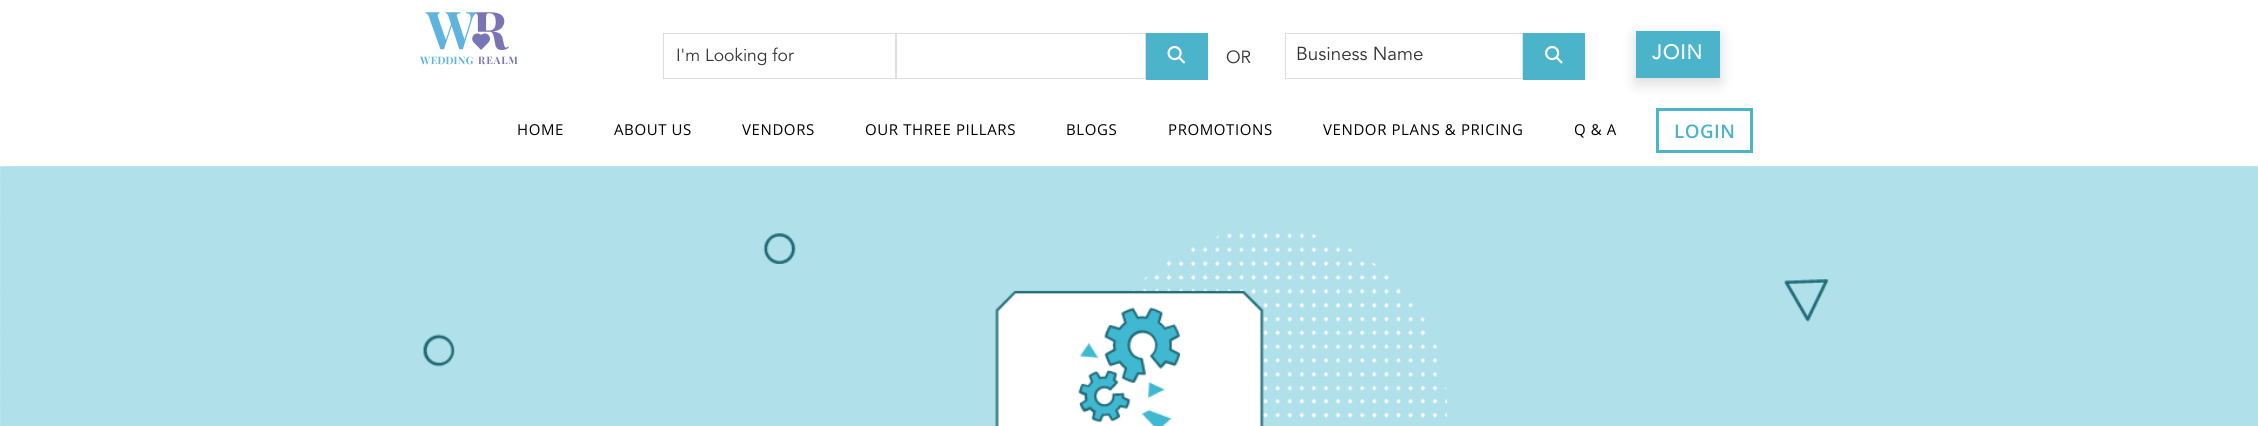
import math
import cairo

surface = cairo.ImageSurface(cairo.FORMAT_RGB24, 2258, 426)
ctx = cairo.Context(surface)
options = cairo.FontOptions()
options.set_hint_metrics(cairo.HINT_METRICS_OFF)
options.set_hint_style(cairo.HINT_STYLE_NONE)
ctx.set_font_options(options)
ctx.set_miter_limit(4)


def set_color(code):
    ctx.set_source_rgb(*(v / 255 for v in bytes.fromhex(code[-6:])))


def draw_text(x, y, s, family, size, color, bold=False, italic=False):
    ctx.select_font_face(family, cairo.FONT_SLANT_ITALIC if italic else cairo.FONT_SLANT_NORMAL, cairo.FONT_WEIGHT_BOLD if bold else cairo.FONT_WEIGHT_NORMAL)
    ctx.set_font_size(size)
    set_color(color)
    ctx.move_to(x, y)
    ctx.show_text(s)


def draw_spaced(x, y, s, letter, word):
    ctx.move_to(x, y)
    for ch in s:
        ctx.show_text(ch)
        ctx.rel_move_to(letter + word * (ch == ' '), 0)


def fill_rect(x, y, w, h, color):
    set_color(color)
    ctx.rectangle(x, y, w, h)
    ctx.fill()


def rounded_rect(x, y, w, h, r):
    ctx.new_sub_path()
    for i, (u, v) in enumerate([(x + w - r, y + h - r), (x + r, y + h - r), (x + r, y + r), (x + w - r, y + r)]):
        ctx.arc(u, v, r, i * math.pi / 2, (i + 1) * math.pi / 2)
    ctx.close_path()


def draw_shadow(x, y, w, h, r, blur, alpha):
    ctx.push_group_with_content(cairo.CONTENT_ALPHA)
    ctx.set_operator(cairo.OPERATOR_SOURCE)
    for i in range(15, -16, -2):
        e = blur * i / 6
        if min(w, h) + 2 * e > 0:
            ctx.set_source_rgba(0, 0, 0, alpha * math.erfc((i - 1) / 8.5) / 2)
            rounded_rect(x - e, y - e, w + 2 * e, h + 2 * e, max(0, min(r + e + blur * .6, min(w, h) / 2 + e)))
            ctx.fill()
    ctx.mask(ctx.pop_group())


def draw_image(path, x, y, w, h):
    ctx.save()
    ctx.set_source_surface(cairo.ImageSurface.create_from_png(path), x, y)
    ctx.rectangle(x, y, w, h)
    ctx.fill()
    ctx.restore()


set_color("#ffffff")
ctx.paint()
ctx.save()
ctx.rectangle(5, 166, 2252, 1)
ctx.clip()
set_color("#000000")
draw_shadow(8, 9, 2246, 154, 0, 6, 0.3)
ctx.restore()
draw_image("assets/img1.png", 420, 12, 98, 53)
ctx.rectangle(663.5, 33.5, 232, 45)
set_color("#dddddd")
ctx.set_line_width(1)
ctx.stroke()
draw_text(676, 61, "I'm Looking for", "Avenir", 17.5, "#333333")
ctx.rectangle(896.5, 33.5, 249, 45)
set_color("#dddddd")
ctx.stroke()
fill_rect(1146, 33, 62, 47, "#4bb4ca")
draw_image("assets/img2.png", 1167, 45, 18, 19)
draw_text(1226, 63, "OR", "Avenir", 17.5, "#333333")
ctx.rectangle(1285.5, 33.5, 237, 45)
set_color("#dddddd")
ctx.stroke()
draw_text(1296, 60, "Business Name", "Avenir", 18.75, "#333333")
fill_rect(1523, 33, 62, 47, "#4bb4ca")
draw_image("assets/img3.png", 1545, 45, 18, 19)
set_color("#000000")
draw_shadow(1636, 36, 84, 47, 0, 7.5, 0.15)
fill_rect(1636, 31, 84, 47, "#4bb4ca")
ctx.select_font_face("Avenir", cairo.FONT_SLANT_NORMAL, cairo.FONT_WEIGHT_BOLD)
ctx.set_font_size(20)
set_color("#ffffff")
draw_spaced(1652, 59, "JOIN", 1, 0)
ctx.select_font_face("Open Sans")
ctx.set_font_size(15)
set_color("#000000")
draw_spaced(517, 135, "HOME", 0.6, 0)
draw_spaced(614, 135, "ABOUT US", 0.6, 0)
draw_spaced(742, 135, "VENDORS", 0.6, 0)
draw_spaced(865, 135, "OUR THREE PILLARS", 0.6, 0)
draw_spaced(1066, 135, "BLOGS", 0.6, 0)
draw_spaced(1168, 135, "PROMOTIONS", 0.6, 0)
draw_spaced(1323, 135, "VENDOR PLANS & PRICING", 0.6, 0)
draw_spaced(1574, 135, "Q & A", 0.6, 0)
ctx.rectangle(1657.5, 109.5, 94, 42)
set_color("#4bb4ca")
ctx.set_line_width(3)
ctx.stroke()
ctx.select_font_face("Open Sans SemiBold")
ctx.set_font_size(18.75)
draw_spaced(1674, 138, "LOGIN", 0.5, 0)
draw_image("assets/img4.png", 0, 166, 2258, 260)
surface.write_to_png("output.png")
